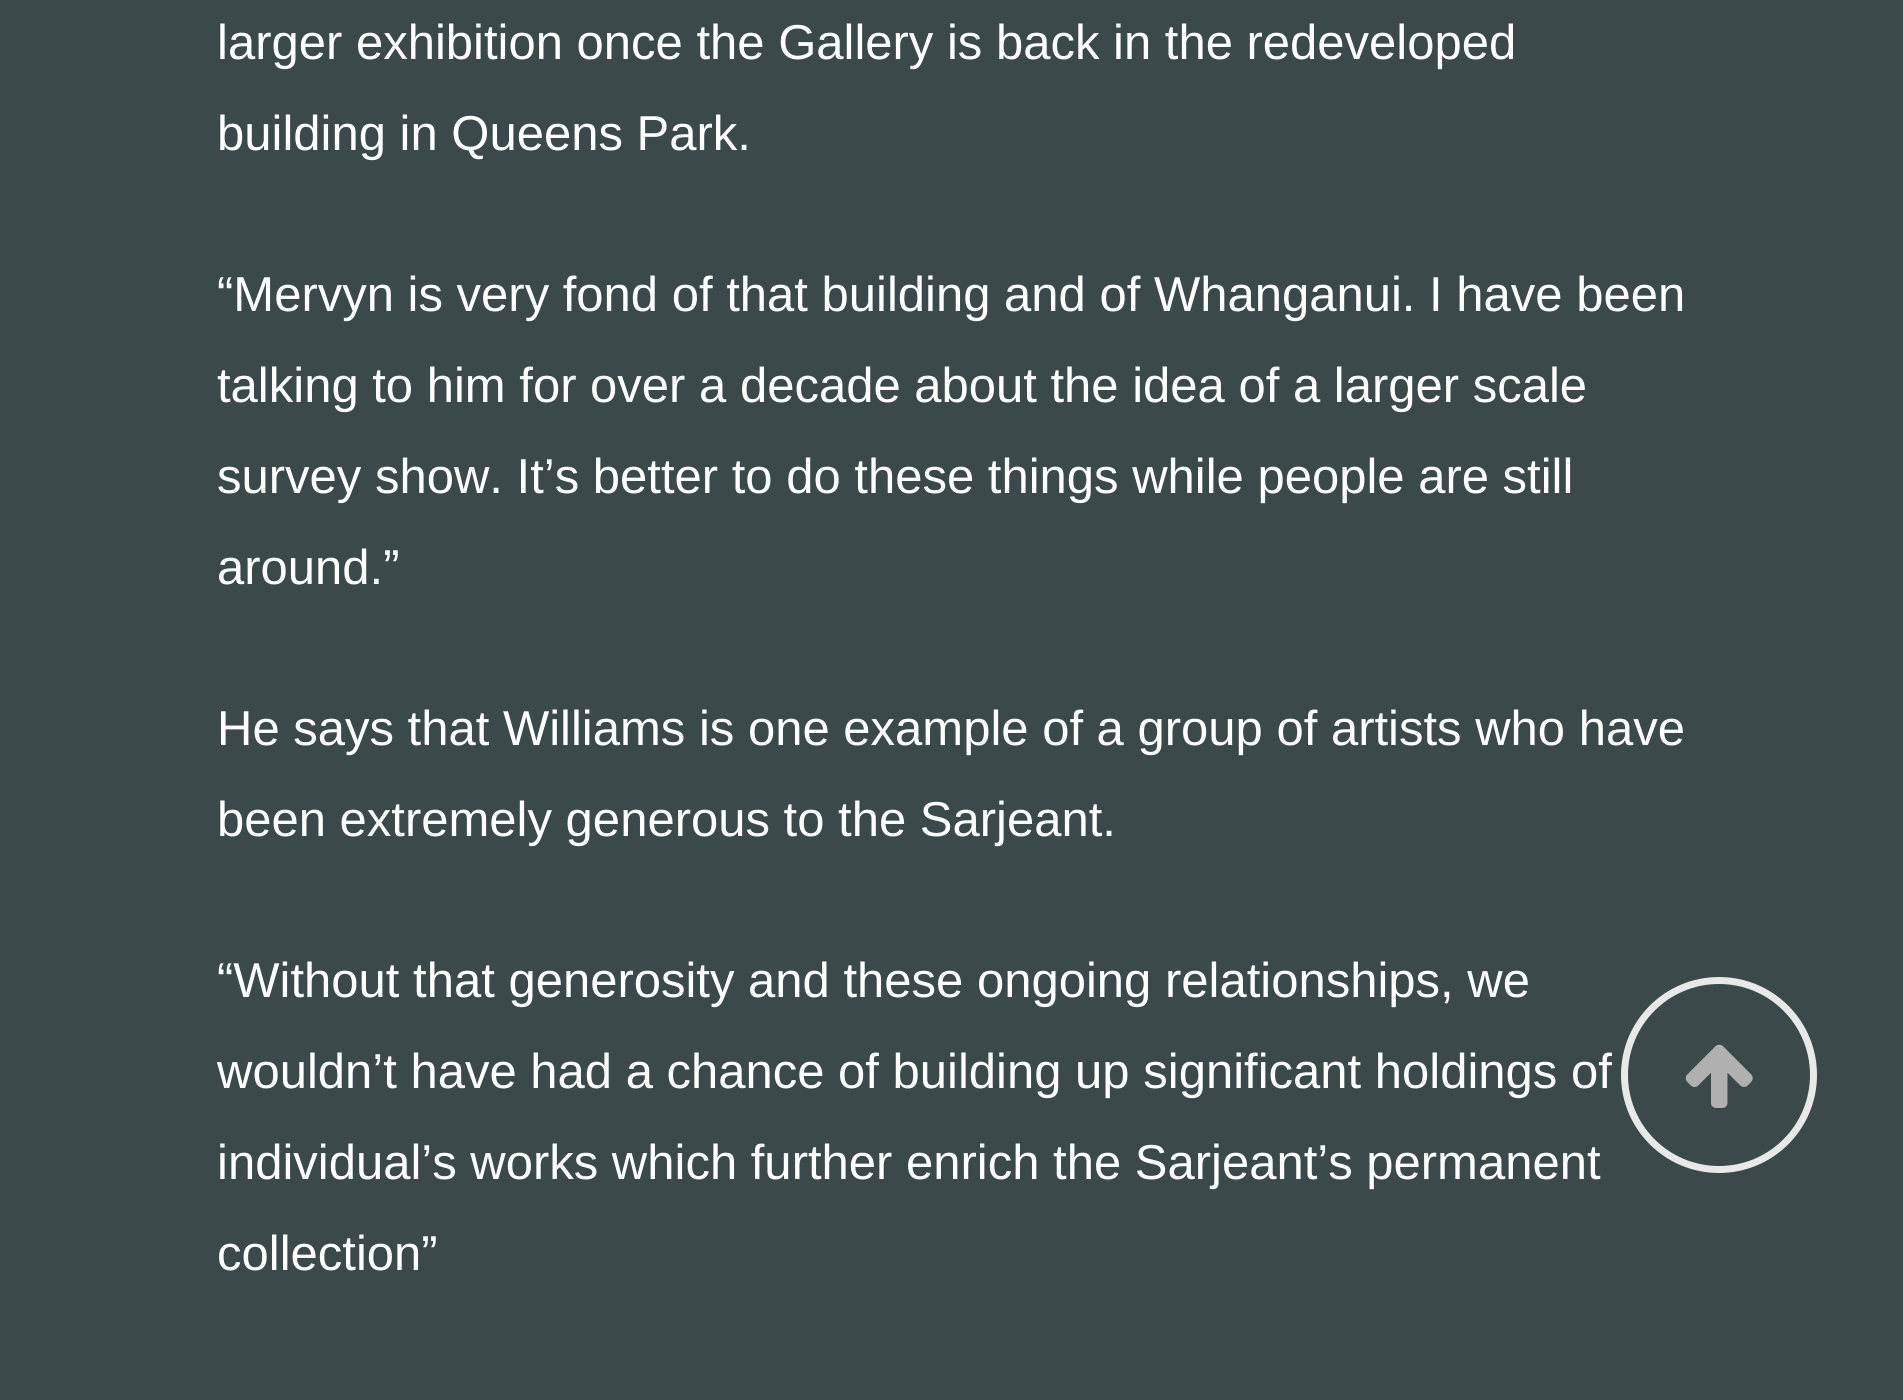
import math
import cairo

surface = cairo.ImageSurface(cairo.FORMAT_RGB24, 1903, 1400)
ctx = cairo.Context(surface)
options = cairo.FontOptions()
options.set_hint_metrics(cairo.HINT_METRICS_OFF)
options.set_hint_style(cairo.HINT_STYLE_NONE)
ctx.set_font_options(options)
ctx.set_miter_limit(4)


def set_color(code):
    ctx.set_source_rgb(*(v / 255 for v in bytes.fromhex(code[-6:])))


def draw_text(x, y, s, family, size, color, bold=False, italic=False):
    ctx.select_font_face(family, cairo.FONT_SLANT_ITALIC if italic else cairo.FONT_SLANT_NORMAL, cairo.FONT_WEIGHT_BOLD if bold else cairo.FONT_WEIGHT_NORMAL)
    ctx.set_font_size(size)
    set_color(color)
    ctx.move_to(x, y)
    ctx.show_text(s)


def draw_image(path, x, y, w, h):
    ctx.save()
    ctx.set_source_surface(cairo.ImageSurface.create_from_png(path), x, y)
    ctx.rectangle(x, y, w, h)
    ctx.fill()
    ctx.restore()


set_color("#3b494a")
ctx.paint()
draw_text(217, 59, "larger exhibition once the Gallery is back in the redeveloped", "Liberation Sans", 49, "#ffffff")
draw_text(217, 150, "building in Queens Park.", "Liberation Sans", 49, "#ffffff")
draw_text(217, 311, "“Mervyn is very fond of that building and of Whanganui. I have been", "Liberation Sans", 49, "#ffffff")
draw_text(217, 402, "talking to him for over a decade about the idea of a larger scale", "Liberation Sans", 49, "#ffffff")
draw_text(217, 493, "survey show. It’s better to do these things while people are still", "Liberation Sans", 49, "#ffffff")
draw_text(217, 584, "around.”", "Liberation Sans", 49, "#ffffff")
draw_text(217, 745, "He says that Williams is one example of a group of artists who have", "Liberation Sans", 49, "#ffffff")
draw_text(217, 836, "been extremely generous to the Sarjeant.", "Liberation Sans", 49, "#ffffff")
draw_text(217, 997, "“Without that generosity and these ongoing relationships, we", "Liberation Sans", 49, "#ffffff")
draw_text(217, 1088, "wouldn’t have had a chance of building up significant holdings of", "Liberation Sans", 49, "#ffffff")
draw_text(217, 1179, "individual’s works which further enrich the Sarjeant’s permanent", "Liberation Sans", 49, "#ffffff")
draw_text(217, 1270, "collection”", "Liberation Sans", 49, "#ffffff")
ctx.new_path()
ctx.arc(1719, 1075, 94.5, 0, 2 * math.pi)
set_color("#e8e8e8")
ctx.set_line_width(7)
ctx.stroke()
draw_image("assets/img1.png", 1685, 1044, 68, 64)
surface.write_to_png("output.png")
